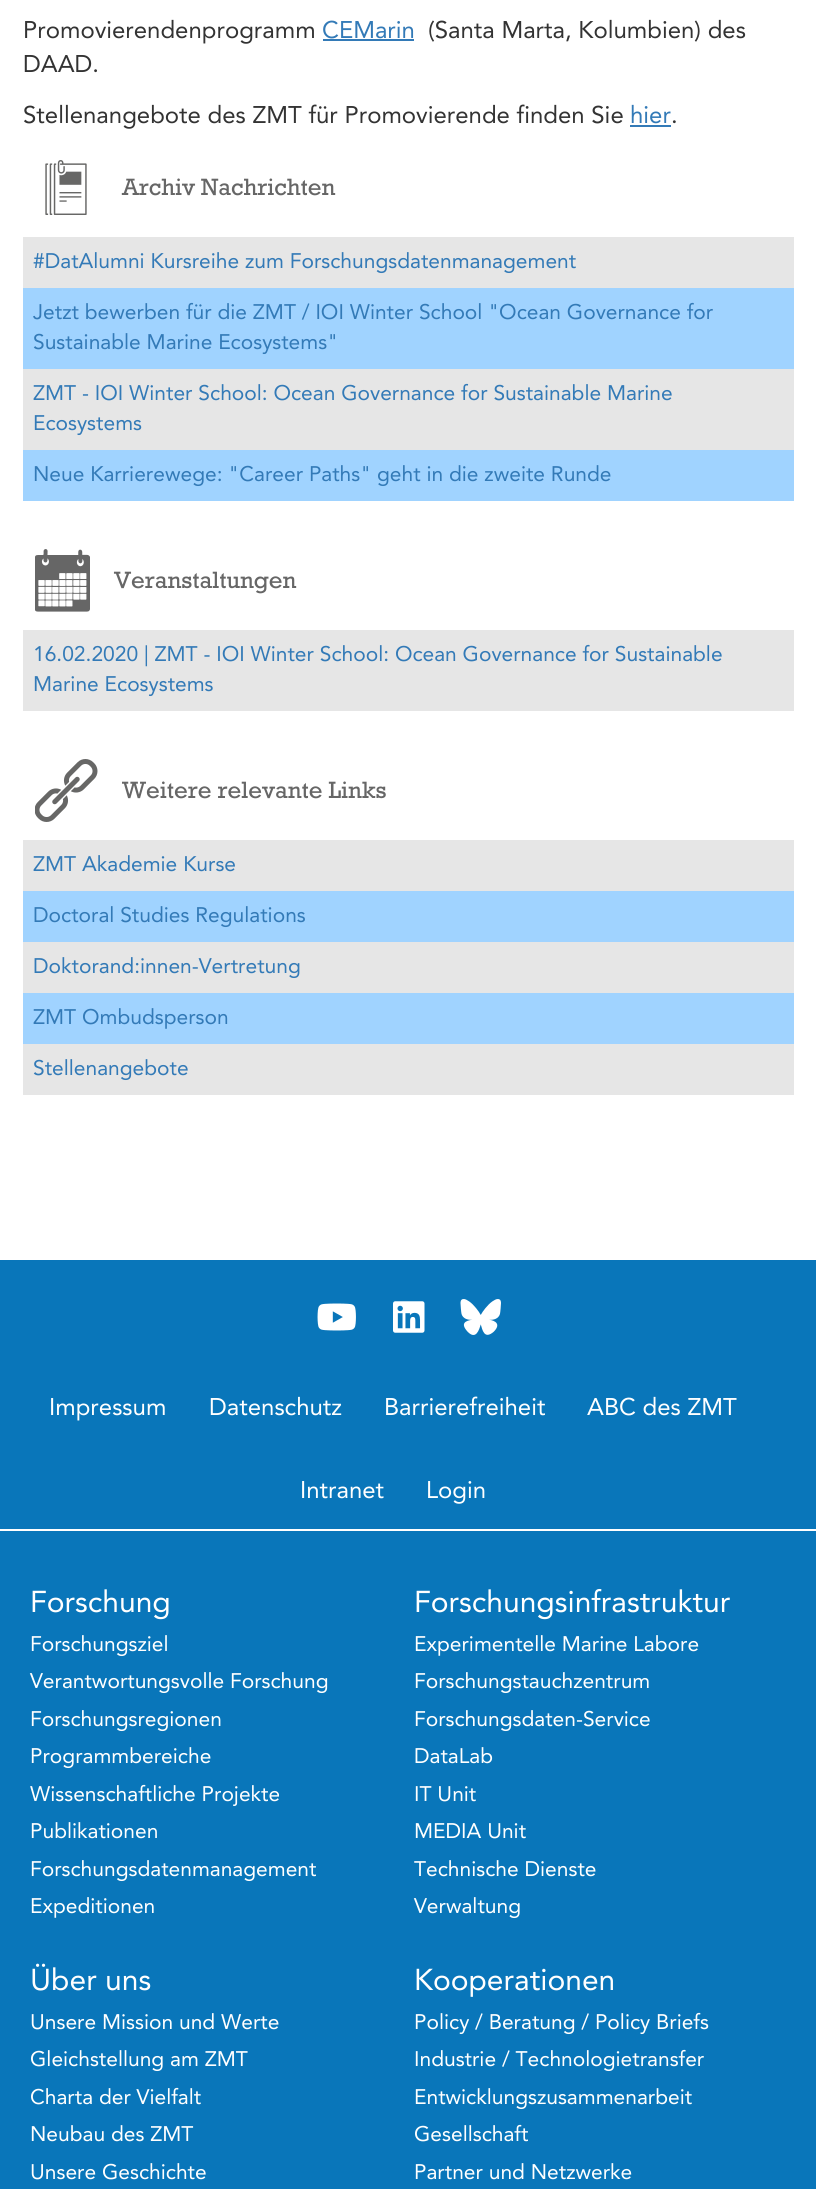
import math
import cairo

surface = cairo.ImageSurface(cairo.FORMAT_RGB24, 816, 2189)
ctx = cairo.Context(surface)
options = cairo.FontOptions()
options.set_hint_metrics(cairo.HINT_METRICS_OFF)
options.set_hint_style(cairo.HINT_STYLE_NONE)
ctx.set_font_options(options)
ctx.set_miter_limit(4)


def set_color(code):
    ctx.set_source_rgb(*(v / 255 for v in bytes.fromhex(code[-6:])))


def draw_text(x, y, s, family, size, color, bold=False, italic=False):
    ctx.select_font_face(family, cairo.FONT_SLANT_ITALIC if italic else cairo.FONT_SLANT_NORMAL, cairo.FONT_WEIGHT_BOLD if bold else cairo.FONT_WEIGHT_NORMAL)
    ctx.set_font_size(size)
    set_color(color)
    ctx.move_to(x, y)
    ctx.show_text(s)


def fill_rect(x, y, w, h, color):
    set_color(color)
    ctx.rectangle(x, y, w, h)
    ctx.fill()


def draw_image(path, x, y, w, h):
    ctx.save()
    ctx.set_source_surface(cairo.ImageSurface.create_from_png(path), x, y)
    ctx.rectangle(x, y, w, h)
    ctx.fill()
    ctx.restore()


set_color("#0976ba")
ctx.paint()
fill_rect(0, 0, 816, 1260, "#ffffff")
draw_text(23, 38, "Promovierendenprogramm", "Avenir", 24, "#333333")
draw_text(322, 38, "CEMarin", "Avenir", 24, "#337ab7")
fill_rect(323, 39, 91, 2, "#337ab7")
draw_text(428, 38, "(Santa Marta, Kolumbien) des", "Avenir", 24, "#333333")
draw_text(23, 72, "DAAD.", "Avenir", 24, "#333333")
draw_text(23, 123, "Stellenangebote des ZMT für Promovierende finden Sie", "Avenir", 24, "#333333")
draw_text(630, 123, "hier", "Avenir", 24, "#337ab7")
fill_rect(630, 125, 41, 2, "#337ab7")
draw_text(671, 123, ".", "Avenir", 24, "#333333")
draw_image("assets/img1.png", 45, 160, 42, 55)
draw_text(122, 195, "Archiv Nachrichten", "Rockwell", 24, "#666666")
fill_rect(23, 237, 771, 51, "#e6e6e6")
draw_text(33, 268, "#DatAlumni Kursreihe zum Forschungsdatenmanagement", "Avenir", 21, "#337ab7")
fill_rect(23, 288, 771, 81, "#a0d3ff")
draw_text(33, 319, "Jetzt bewerben für die ZMT / IOI Winter School \"Ocean Governance for", "Avenir", 21, "#337ab7")
draw_text(33, 349, "Sustainable Marine Ecosystems\"", "Avenir", 21, "#337ab7")
fill_rect(23, 369, 771, 81, "#e6e6e6")
draw_text(33, 400, "ZMT - IOI Winter School: Ocean Governance for Sustainable Marine", "Avenir", 21, "#337ab7")
draw_text(33, 430, "Ecosystems", "Avenir", 21, "#337ab7")
fill_rect(23, 450, 771, 51, "#a0d3ff")
draw_text(33, 481, "Neue Karrierewege: \"Career Paths\" geht in die zweite Runde", "Avenir", 21, "#337ab7")
draw_image("assets/img2.png", 35, 549, 55, 63)
draw_text(114, 588, "Veranstaltungen", "Rockwell", 24, "#666666")
fill_rect(23, 630, 771, 81, "#e6e6e6")
draw_text(33, 661, "16.02.2020 | ZMT - IOI Winter School: Ocean Governance for Sustainable", "Avenir", 21, "#337ab7")
draw_text(33, 691, "Marine Ecosystems", "Avenir", 21, "#337ab7")
draw_image("assets/img3.png", 35, 759, 63, 63)
draw_text(122, 798, "Weitere relevante Links", "Rockwell", 24, "#666666")
fill_rect(23, 891, 771, 153, "#a0d3ff")
fill_rect(23, 840, 771, 51, "#e6e6e6")
draw_text(33, 871, "ZMT Akademie Kurse", "Avenir", 21, "#337ab7")
draw_text(33, 922, "Doctoral Studies Regulations", "Avenir", 21, "#337ab7")
fill_rect(23, 942, 771, 51, "#e6e6e6")
draw_text(33, 973, "Doktorand:innen-Vertretung", "Avenir", 21, "#337ab7")
draw_text(33, 1024, "ZMT Ombudsperson", "Avenir", 21, "#337ab7")
fill_rect(23, 1044, 771, 51, "#e6e6e6")
draw_text(33, 1075, "Stellenangebote", "Avenir", 21, "#337ab7")
fill_rect(0, 1529, 816, 2, "#ffffff")
draw_image("assets/img4.png", 317, 1303, 39, 28)
draw_image("assets/img5.png", 393, 1301, 32, 32)
draw_image("assets/img6.png", 460, 1299, 41, 36)
draw_text(49, 1415, "Impressum", "Avenir", 24, "#ffffff")
draw_text(209, 1415, "Datenschutz", "Avenir", 24, "#ffffff")
draw_text(384, 1415, "Barrierefreiheit", "Avenir", 24, "#ffffff")
draw_text(587, 1415, "ABC des ZMT", "Avenir", 24, "#ffffff")
draw_text(300, 1498, "Intranet", "Avenir", 24, "#ffffff")
draw_text(426, 1498, "Login", "Avenir", 24, "#ffffff")
draw_text(30, 1612, "Forschung", "Avenir", 30, "#ffffff")
draw_text(30, 1651, "Forschungsziel", "Avenir", 21, "#ffffff")
draw_text(30, 1688, "Verantwortungsvolle Forschung", "Avenir", 21, "#ffffff")
draw_text(30, 1726, "Forschungsregionen", "Avenir", 21, "#ffffff")
draw_text(30, 1763, "Programmbereiche", "Avenir", 21, "#ffffff")
draw_text(30, 1801, "Wissenschaftliche Projekte", "Avenir", 21, "#ffffff")
draw_text(30, 1838, "Publikationen", "Avenir", 21, "#ffffff")
draw_text(30, 1876, "Forschungsdatenmanagement", "Avenir", 21, "#ffffff")
draw_text(30, 1913, "Expeditionen", "Avenir", 21, "#ffffff")
draw_text(414, 1612, "Forschungsinfrastruktur", "Avenir", 30, "#ffffff")
draw_text(414, 1651, "Experimentelle Marine Labore", "Avenir", 21, "#ffffff")
draw_text(414, 1688, "Forschungstauchzentrum", "Avenir", 21, "#ffffff")
draw_text(414, 1726, "Forschungsdaten-Service", "Avenir", 21, "#ffffff")
draw_text(414, 1763, "DataLab", "Avenir", 21, "#ffffff")
draw_text(414, 1801, "IT Unit", "Avenir", 21, "#ffffff")
draw_text(414, 1838, "MEDIA Unit", "Avenir", 21, "#ffffff")
draw_text(414, 1876, "Technische Dienste", "Avenir", 21, "#ffffff")
draw_text(414, 1913, "Verwaltung", "Avenir", 21, "#ffffff")
draw_text(30, 1990, "Über uns", "Avenir", 30, "#ffffff")
draw_text(30, 2029, "Unsere Mission und Werte", "Avenir", 21, "#ffffff")
draw_text(30, 2066, "Gleichstellung am ZMT", "Avenir", 21, "#ffffff")
draw_text(30, 2104, "Charta der Vielfalt", "Avenir", 21, "#ffffff")
draw_text(30, 2141, "Neubau des ZMT", "Avenir", 21, "#ffffff")
draw_text(30, 2179, "Unsere Geschichte", "Avenir", 21, "#ffffff")
draw_text(414, 1990, "Kooperationen", "Avenir", 30, "#ffffff")
draw_text(414, 2029, "Policy / Beratung / Policy Briefs", "Avenir", 21, "#ffffff")
draw_text(414, 2066, "Industrie / Technologietransfer", "Avenir", 21, "#ffffff")
draw_text(414, 2104, "Entwicklungszusammenarbeit", "Avenir", 21, "#ffffff")
draw_text(414, 2141, "Gesellschaft", "Avenir", 21, "#ffffff")
draw_text(414, 2179, "Partner und Netzwerke", "Avenir", 21, "#ffffff")
surface.write_to_png("output.png")
